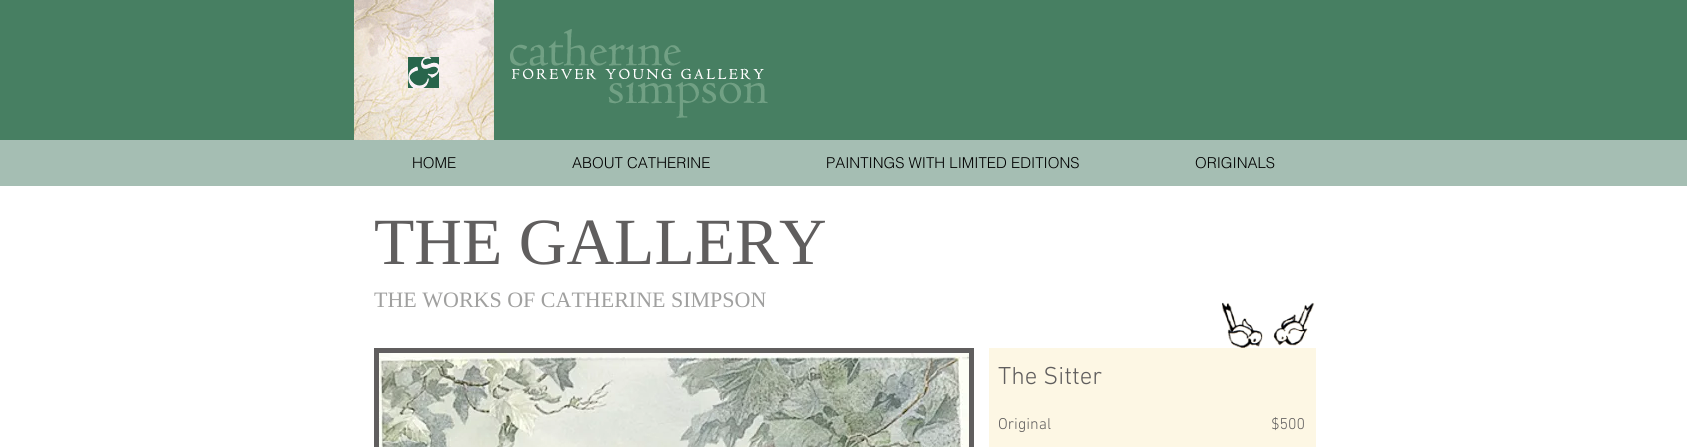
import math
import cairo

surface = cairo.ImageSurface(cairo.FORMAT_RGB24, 1687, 447)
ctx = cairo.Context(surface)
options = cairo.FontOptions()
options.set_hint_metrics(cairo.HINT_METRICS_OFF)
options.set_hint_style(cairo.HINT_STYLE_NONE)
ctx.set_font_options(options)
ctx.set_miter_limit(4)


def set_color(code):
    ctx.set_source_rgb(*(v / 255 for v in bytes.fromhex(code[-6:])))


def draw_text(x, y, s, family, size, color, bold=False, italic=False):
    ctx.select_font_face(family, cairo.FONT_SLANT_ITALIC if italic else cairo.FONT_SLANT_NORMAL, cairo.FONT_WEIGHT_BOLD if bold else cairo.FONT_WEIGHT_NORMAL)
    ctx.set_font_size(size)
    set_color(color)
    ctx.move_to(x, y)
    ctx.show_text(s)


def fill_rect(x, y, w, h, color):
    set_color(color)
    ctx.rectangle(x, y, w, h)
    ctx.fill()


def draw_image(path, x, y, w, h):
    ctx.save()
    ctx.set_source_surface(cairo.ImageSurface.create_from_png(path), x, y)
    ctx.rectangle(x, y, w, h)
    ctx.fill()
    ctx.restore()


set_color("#ffffff")
ctx.paint()
fill_rect(0, 0, 1687, 140, "#477f62")
draw_image("assets/img1.png", 354, 0, 140, 140)
draw_image("assets/img2.png", 510, 29, 258, 89)
fill_rect(0, 140, 1687, 46, "#a5beb3")
draw_text(412, 168, "HOME", "helvetica Light", 15, "#000000")
draw_text(572, 168, "ABOUT CATHERINE", "helvetica Light", 15, "#000000")
draw_text(826, 168, "PAINTINGS WITH LIMITED EDITIONS", "helvetica Light", 15, "#000000")
draw_text(1195, 168, "ORIGINALS", "helvetica Light", 15, "#000000")
draw_text(374, 264, "THE GALLERY", "Liberation Serif", 66, "#605e5e")
draw_text(374, 307, "THE WORKS OF CATHERINE SIMPSON", "Liberation Serif", 22, "#a0a09f")
draw_image("assets/img3.png", 1222, 302, 93, 46)
fill_rect(374, 348, 600, 99, "#605e5e")
draw_image("assets/img4.png", 379, 353, 590, 94)
fill_rect(989, 348, 327, 99, "#fdf7e4")
draw_text(998, 384, "The Sitter", "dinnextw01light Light", 25, "#605e5e")
draw_text(998, 429, "Original", "dinnextw01light Light", 16, "#605e5e")
draw_text(1271, 429, "$500", "dinnextw01light Light", 16, "#605e5e")
surface.write_to_png("output.png")
